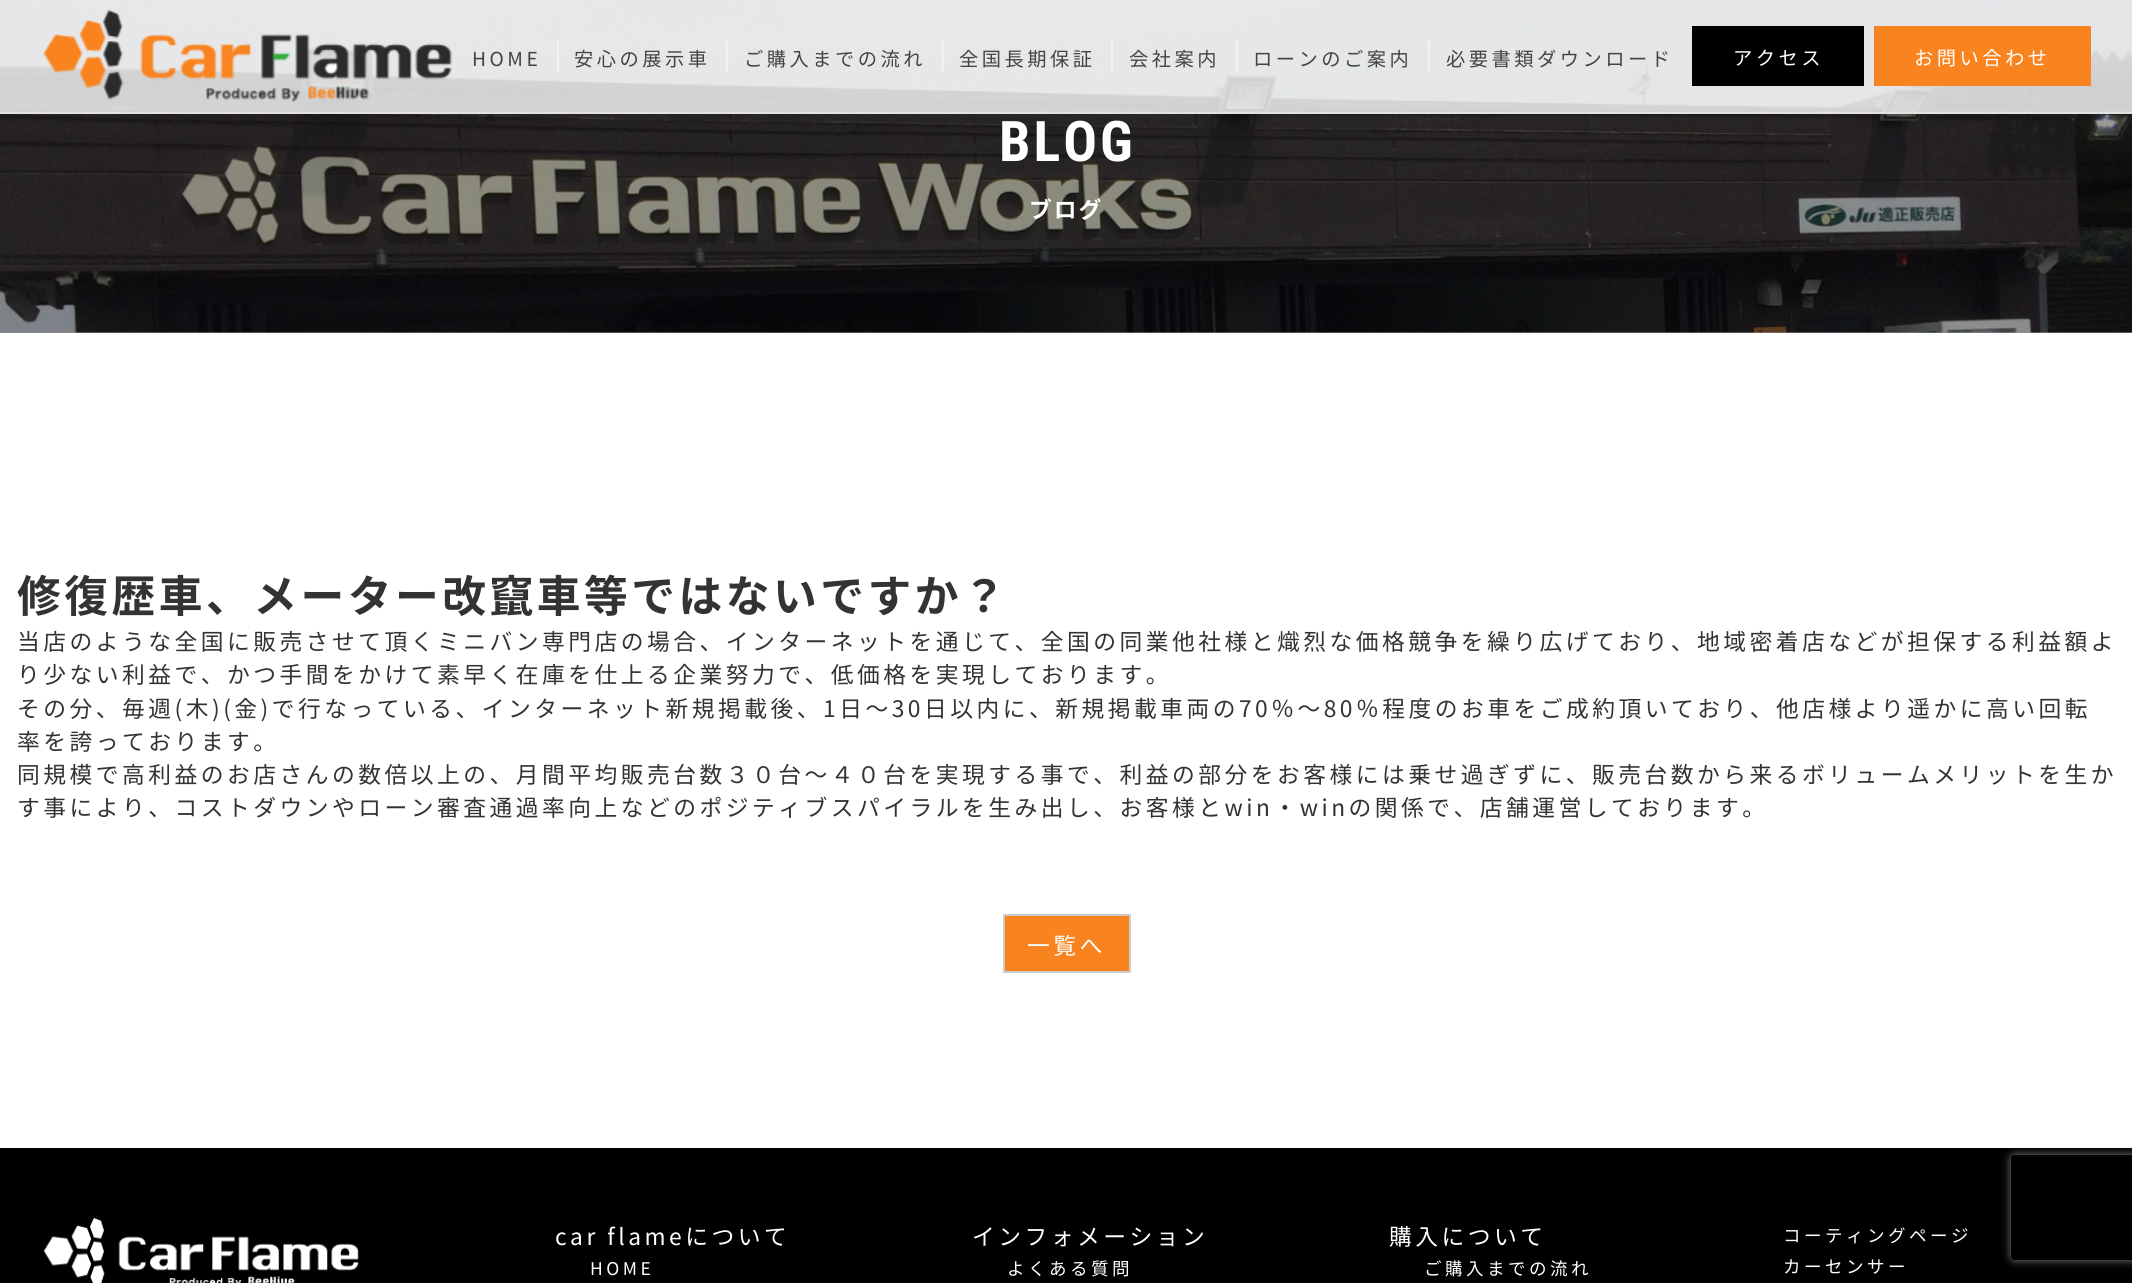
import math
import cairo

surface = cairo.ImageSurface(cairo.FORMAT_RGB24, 2132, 1283)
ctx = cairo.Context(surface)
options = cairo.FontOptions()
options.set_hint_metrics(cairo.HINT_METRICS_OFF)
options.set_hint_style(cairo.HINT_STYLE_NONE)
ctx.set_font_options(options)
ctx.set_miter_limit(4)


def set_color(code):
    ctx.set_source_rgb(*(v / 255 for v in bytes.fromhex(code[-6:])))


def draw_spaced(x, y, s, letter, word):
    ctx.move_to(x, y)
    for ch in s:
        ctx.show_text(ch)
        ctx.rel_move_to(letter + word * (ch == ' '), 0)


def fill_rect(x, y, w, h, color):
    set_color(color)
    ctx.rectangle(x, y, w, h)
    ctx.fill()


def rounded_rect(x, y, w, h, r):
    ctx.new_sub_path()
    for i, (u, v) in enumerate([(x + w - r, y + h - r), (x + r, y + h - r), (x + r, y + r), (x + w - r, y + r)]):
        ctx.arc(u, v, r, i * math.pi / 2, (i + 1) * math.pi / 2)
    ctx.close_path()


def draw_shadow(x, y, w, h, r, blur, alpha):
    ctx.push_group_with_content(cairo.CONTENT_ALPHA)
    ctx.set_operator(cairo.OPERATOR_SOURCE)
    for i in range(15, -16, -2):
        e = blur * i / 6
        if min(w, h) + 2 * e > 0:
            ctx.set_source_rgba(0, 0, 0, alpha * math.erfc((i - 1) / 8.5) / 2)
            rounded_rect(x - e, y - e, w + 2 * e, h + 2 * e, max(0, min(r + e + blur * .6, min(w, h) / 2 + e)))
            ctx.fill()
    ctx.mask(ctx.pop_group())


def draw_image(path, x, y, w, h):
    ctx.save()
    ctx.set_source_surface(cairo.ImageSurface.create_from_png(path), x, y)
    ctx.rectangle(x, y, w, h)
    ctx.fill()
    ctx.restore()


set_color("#ffffff")
ctx.paint()
fill_rect(0, 332, 2132, 1, "#939393")
draw_image("assets/img2.png", 0, 0, 2132, 333)
ctx.set_source_rgba(1, 1, 1, 0.8)
ctx.rectangle(0, 0, 2132, 112)
ctx.fill()
fill_rect(0, 112, 2132, 2, "#e2e2e2")
draw_image("assets/img1.png", 43, 10, 410, 92)
ctx.select_font_face("Noto Sans JP")
ctx.set_font_size(19.25)
set_color("#444444")
draw_spaced(472, 66, "HOME", 3.5, 0)
fill_rect(557, 40, 2, 32, "#f1f1f1")
set_color("#444444")
draw_spaced(574, 66, "安心の展示車", 3.5, 0)
fill_rect(726, 40, 2, 32, "#f1f1f1")
set_color("#444444")
draw_spaced(744, 66, "ご購入までの流れ", 3.5, 0)
fill_rect(942, 40, 2, 32, "#f1f1f1")
set_color("#444444")
draw_spaced(959, 66, "全国長期保証", 3.5, 0)
fill_rect(1111, 40, 2, 32, "#f1f1f1")
set_color("#444444")
draw_spaced(1129, 66, "会社案内", 3.5, 0)
fill_rect(1236, 40, 2, 32, "#f1f1f1")
set_color("#444444")
draw_spaced(1253, 66, "ローンのご案内", 3.5, 0)
fill_rect(1428, 40, 2, 32, "#f1f1f1")
set_color("#444444")
draw_spaced(1446, 66, "必要書類ダウンロード", 3.5, 0)
fill_rect(1692, 26, 172, 60, "#000000")
set_color("#ffffff")
draw_spaced(1733, 65, "アクセス", 3.5, 0)
fill_rect(1874, 26, 217, 60, "#f9831f")
set_color("#ffffff")
draw_spaced(1914, 65, "お問い合わせ", 3.5, 0)
ctx.select_font_face("Roboto Condensed", cairo.FONT_SLANT_NORMAL, cairo.FONT_WEIGHT_BOLD)
ctx.set_font_size(56)
draw_spaced(999, 161, "BLOG", 3, 0)
ctx.select_font_face("Noto Sans JP", cairo.FONT_SLANT_NORMAL, cairo.FONT_WEIGHT_BOLD)
ctx.set_font_size(22.75)
draw_spaced(1029, 218, "ブログ", 2, 0)
ctx.set_font_size(43.75)
set_color("#333333")
draw_spaced(17, 612, "修復歴車、メーター改竄車等ではないですか？", 3.5, 0)
ctx.select_font_face("Noto Sans JP")
ctx.set_font_size(22.75)
draw_spaced(17, 650, "当店のような全国に販売させて頂くミニバン専門店の場合、インターネットを通じて、全国の同業他社様と熾烈な価格競争を繰り広げており、地域密着店などが担保する利益額よ", 3.5, 0)
draw_spaced(17, 683, "り少ない利益で、かつ手間をかけて素早く在庫を仕上る企業努力で、低価格を実現しております。", 3.5, 0)
draw_spaced(17, 717, "その分、毎週(木)(金)で行なっている、インターネット新規掲載後、1日～30日以内に、新規掲載車両の70％～80％程度のお車をご成約頂いており、他店様より遥かに高い回転", 3.5, 0)
draw_spaced(17, 750, "率を誇っております。", 3.5, 0)
draw_spaced(17, 783, "同規模で高利益のお店さんの数倍以上の、月間平均販売台数３０台～４０台を実現する事で、利益の部分をお客様には乗せ過ぎずに、販売台数から来るボリュームメリットを生か", 3.5, 0)
draw_spaced(17, 816, "す事により、コストダウンやローン審査通過率向上などのポジティブスパイラルを生み出し、お客様とwin・winの関係で、店舗運営しております。", 3.5, 0)
set_color("#f9831f")
ctx.rectangle(1004, 915, 126, 57)
ctx.fill_preserve()
set_color("#cccccc")
ctx.stroke()
set_color("#ffffff")
draw_spaced(1027, 954, "一覧へ", 3.5, 0)
fill_rect(0, 1148, 2132, 135, "#000000")
draw_image("assets/img3.png", 43, 1218, 316, 65)
set_color("#ffffff")
draw_spaced(555, 1245, "car flameについて", 3.5, 0)
ctx.set_font_size(17.5)
draw_spaced(590, 1275, "HOME", 3.5, 0)
ctx.set_font_size(22.75)
draw_spaced(972, 1245, "インフォメーション", 3.5, 0)
ctx.set_font_size(17.5)
draw_spaced(1007, 1275, "よくある質問", 3.5, 0)
ctx.set_font_size(22.75)
draw_spaced(1389, 1245, "購入について", 3.5, 0)
ctx.set_font_size(17.5)
draw_spaced(1424, 1275, "ご購入までの流れ", 3.5, 0)
draw_spaced(1783, 1242, "コーティングページ", 3.5, 0)
draw_spaced(1783, 1273, "カーセンサー", 3.5, 0)
ctx.save()
ctx.set_fill_rule(cairo.FILL_RULE_EVEN_ODD)
ctx.new_path()
ctx.move_to(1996, 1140)
ctx.line_to(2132, 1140)
ctx.line_to(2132, 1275)
ctx.line_to(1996, 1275)
ctx.close_path()
ctx.move_to(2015, 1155)
ctx.line_to(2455, 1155)
ctx.curve_to(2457, 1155, 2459, 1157, 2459, 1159)
ctx.line_to(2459, 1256)
ctx.curve_to(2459, 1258, 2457, 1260, 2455, 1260)
ctx.line_to(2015, 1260)
ctx.curve_to(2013, 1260, 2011, 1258, 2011, 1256)
ctx.line_to(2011, 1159)
ctx.curve_to(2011, 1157, 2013, 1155, 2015, 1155)
ctx.close_path()
ctx.clip()
set_color("#808080")
draw_shadow(2011, 1155, 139, 105, 4, 4.5, 1)
ctx.restore()
surface.write_to_png("output.png")
